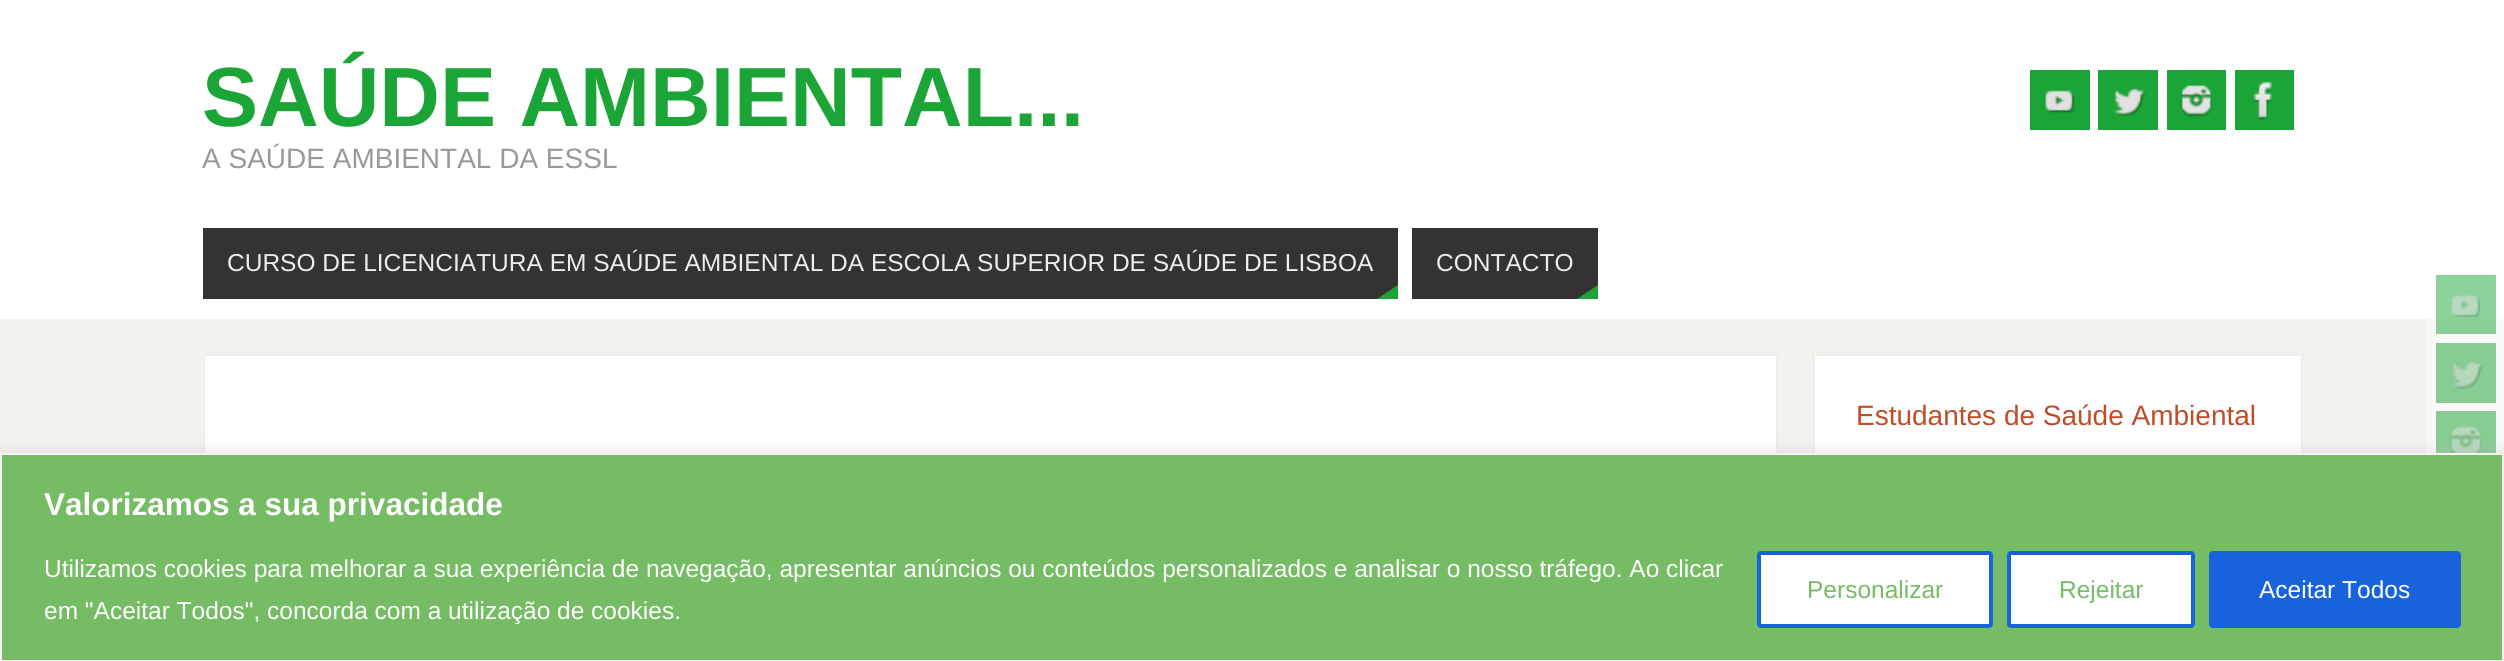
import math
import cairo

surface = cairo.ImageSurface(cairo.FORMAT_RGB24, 2504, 661)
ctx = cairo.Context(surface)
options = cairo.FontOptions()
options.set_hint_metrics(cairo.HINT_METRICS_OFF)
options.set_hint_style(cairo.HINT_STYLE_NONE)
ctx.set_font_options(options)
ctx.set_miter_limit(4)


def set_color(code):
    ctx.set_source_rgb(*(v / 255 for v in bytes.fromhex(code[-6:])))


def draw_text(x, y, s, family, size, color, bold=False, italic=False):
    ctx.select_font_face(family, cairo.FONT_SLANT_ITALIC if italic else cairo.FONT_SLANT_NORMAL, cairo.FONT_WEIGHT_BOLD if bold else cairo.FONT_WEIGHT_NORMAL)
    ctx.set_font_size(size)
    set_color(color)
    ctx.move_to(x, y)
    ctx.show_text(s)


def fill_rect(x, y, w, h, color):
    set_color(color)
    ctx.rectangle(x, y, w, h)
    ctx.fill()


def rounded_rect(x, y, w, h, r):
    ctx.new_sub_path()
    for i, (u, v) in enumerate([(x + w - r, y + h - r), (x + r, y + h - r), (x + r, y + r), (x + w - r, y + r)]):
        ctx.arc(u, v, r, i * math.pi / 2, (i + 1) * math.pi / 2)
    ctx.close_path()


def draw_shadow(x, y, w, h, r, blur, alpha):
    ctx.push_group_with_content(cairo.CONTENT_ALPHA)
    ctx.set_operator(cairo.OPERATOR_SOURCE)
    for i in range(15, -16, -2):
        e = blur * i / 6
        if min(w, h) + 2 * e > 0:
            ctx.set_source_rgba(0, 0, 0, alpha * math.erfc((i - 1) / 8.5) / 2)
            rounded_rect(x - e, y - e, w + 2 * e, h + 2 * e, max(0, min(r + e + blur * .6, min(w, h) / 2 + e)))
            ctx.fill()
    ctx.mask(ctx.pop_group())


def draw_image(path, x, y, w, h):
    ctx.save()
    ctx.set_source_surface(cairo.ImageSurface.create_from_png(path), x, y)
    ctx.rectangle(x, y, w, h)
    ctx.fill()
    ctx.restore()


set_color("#f3f3ee")
ctx.paint()
fill_rect(2426, 319, 78, 134, "#f9f9f7")
fill_rect(2436, 319, 60, 15, "#8bcf97")
fill_rect(0, 0, 2504, 319, "#ffffff")
fill_rect(2436, 275, 60, 44, "#8ed29b")
draw_text(202, 126, "SAÚDE AMBIENTAL...", "Liberation Sans", 84, "#1ca537", bold=True)
draw_text(202, 168, "A SAÚDE AMBIENTAL DA ESSL", "Liberation Sans", 28, "#999999")
fill_rect(2030, 70, 60, 60, "#1ca537")
draw_image("assets/img1.png", 2045, 90, 30, 23)
fill_rect(2098, 70, 60, 60, "#1ca537")
draw_image("assets/img2.png", 2113, 88, 33, 28)
fill_rect(2167, 70, 59, 60, "#1ca537")
draw_image("assets/img3.png", 2180, 85, 32, 33)
fill_rect(2235, 70, 59, 60, "#1ca537")
draw_image("assets/img4.png", 2252, 81, 21, 40)
fill_rect(203, 228, 1195, 71, "#333333")
draw_text(227, 271, "CURSO DE LICENCIATURA EM SAÚDE AMBIENTAL DA ESCOLA SUPERIOR DE SAÚDE DE LISBOA", "Liberation Sans", 24.5, "#eeeeee")
set_color("#1ca537")
ctx.new_path()
ctx.move_to(1398, 299)
ctx.line_to(1377, 299)
ctx.line_to(1398, 285)
ctx.close_path()
ctx.fill()
fill_rect(1412, 228, 186, 71, "#333333")
draw_text(1436, 271, "CONTACTO", "Liberation Sans", 24.5, "#eeeeee")
set_color("#1ca537")
ctx.new_path()
ctx.move_to(1598, 299)
ctx.line_to(1577, 299)
ctx.line_to(1598, 285)
ctx.close_path()
ctx.fill()
fill_rect(205, 356, 1571, 97, "#ffffff")
ctx.rectangle(204, 355, 1573, 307)
set_color("#eeeeee")
ctx.stroke()
fill_rect(1815, 356, 486, 97, "#ffffff")
ctx.rectangle(1814, 355, 488, 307)
set_color("#eeeeee")
ctx.stroke()
draw_text(1856, 425, "Estudantes de Saúde Ambiental", "Liberation Sans", 28, "#bf4d28")
draw_image("assets/img5.png", 2451, 295, 29, 23)
fill_rect(2436, 343, 60, 60, "#88cc93")
draw_image("assets/img6.png", 2452, 361, 31, 28)
fill_rect(2436, 411, 60, 42, "#88cc93")
draw_image("assets/img7.png", 2450, 426, 32, 27)
set_color("#acabab")
draw_shadow(0, 452, 2504, 208, 0, 9, 0.3)
set_color("#75bc64")
ctx.rectangle(1, 454, 2502, 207)
ctx.fill_preserve()
set_color("#f4f4f4")
ctx.stroke()
draw_text(44, 515, "Valorizamos a sua privacidade", "Liberation Sans", 31.5, "#ffffff", bold=True)
draw_text(44, 577, "Utilizamos cookies para melhorar a sua experiência de navegação, apresentar anúncios ou conteúdos personalizados e analisar o nosso tráfego. Ao clicar", "Liberation Sans", 24.5, "#ffffff")
draw_text(44, 619, "em \"Aceitar Todos\", concorda com a utilização de cookies.", "Liberation Sans", 24.5, "#ffffff")
rounded_rect(1759, 553, 232, 73, 2)
ctx.fill_preserve()
set_color("#1863dc")
ctx.set_line_width(4)
ctx.stroke()
draw_text(1807, 598, "Personalizar", "Liberation Sans", 24.5, "#75bc64")
set_color("#ffffff")
rounded_rect(2009, 553, 184, 73, 2)
ctx.fill_preserve()
set_color("#1863dc")
ctx.stroke()
draw_text(2059, 598, "Rejeitar", "Liberation Sans", 24.5, "#75bc64")
set_color("#1863dc")
rounded_rect(2211, 553, 248, 73, 2)
ctx.fill_preserve()
ctx.stroke()
draw_text(2259, 598, "Aceitar Todos", "Liberation Sans", 24.5, "#ffffff")
surface.write_to_png("output.png")
